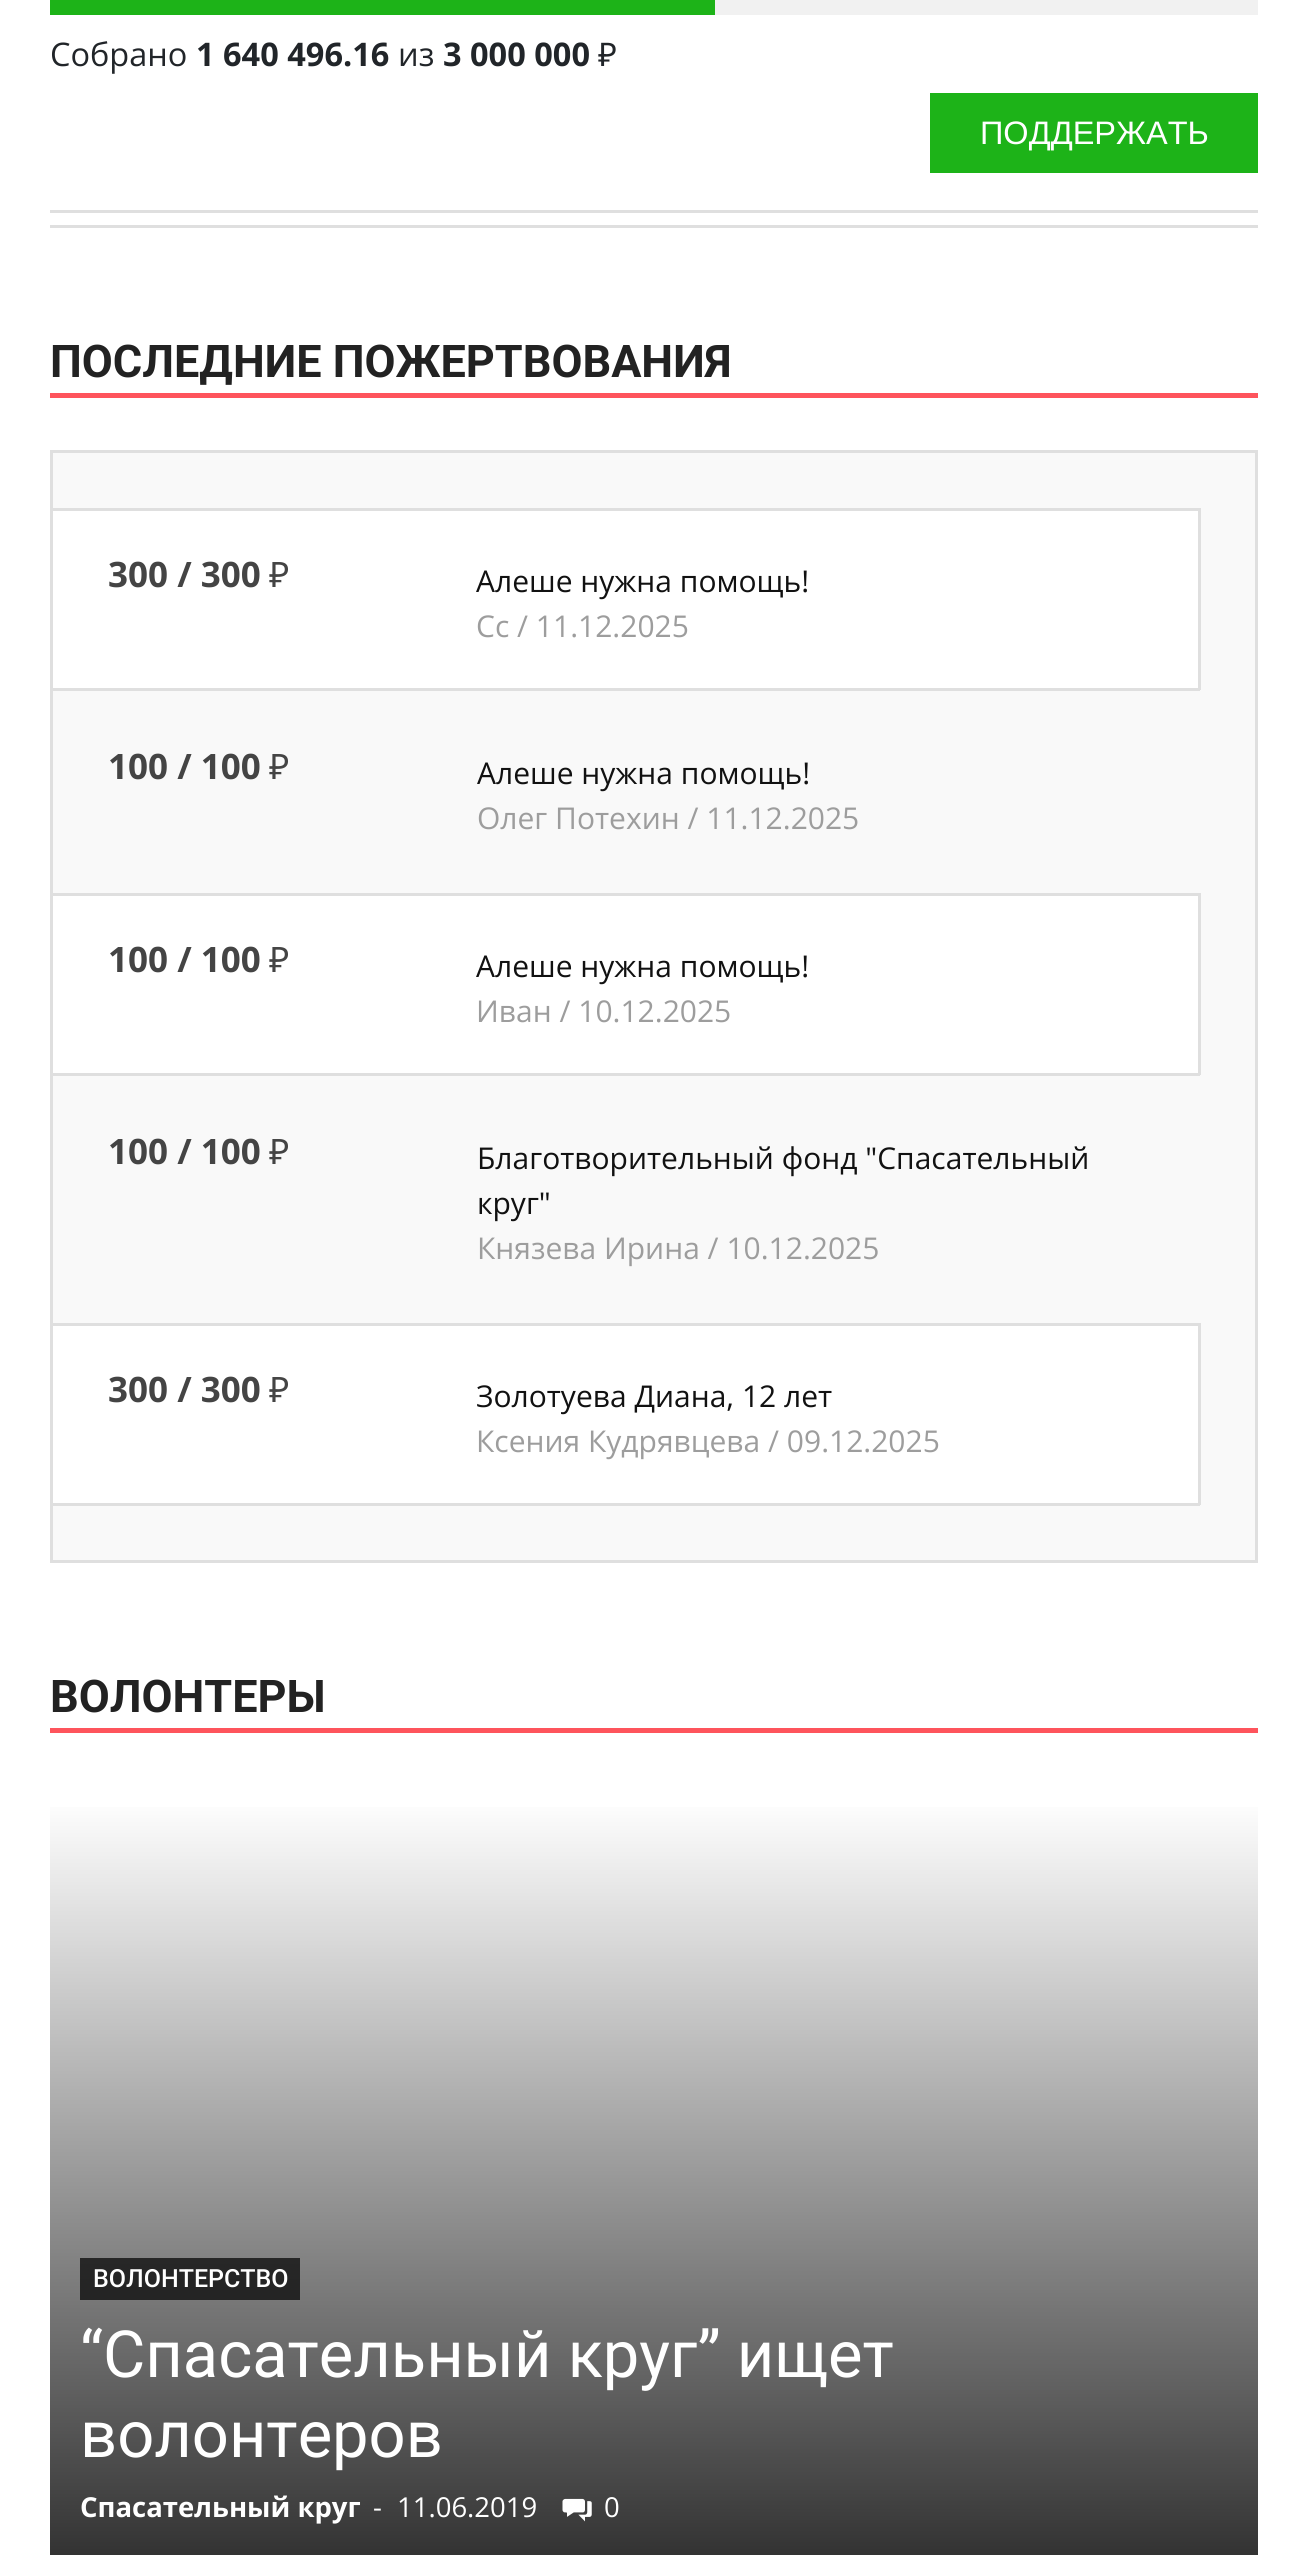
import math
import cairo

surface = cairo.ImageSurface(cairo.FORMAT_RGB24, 1307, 2573)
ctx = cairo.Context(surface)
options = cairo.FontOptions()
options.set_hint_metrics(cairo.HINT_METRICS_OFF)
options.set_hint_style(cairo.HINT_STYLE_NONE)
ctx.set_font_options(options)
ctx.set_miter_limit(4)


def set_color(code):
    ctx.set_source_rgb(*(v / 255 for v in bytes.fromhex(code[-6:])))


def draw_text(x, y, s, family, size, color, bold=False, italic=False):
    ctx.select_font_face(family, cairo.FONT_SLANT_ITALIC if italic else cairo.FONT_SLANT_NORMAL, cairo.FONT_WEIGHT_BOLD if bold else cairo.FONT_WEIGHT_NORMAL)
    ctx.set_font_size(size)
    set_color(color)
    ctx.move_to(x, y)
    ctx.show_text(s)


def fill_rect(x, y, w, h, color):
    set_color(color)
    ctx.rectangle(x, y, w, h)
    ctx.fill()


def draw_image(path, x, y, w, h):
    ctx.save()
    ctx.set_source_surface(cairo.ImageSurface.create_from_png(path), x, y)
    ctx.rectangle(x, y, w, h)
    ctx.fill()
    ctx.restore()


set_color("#ffffff")
ctx.paint()
fill_rect(50, 225, 1208, 3, "#dfdfdf")
fill_rect(50, 210, 1208, 3, "#dfdfdf")
fill_rect(715, 0, 543, 15, "#f1f1f1")
fill_rect(50, 0, 665, 15, "#1db318")
draw_text(50, 66, "Собрано", "Open Sans", 32.5, "#212529")
draw_text(196, 66, "1 640 496.16", "Open Sans", 32.5, "#212529", bold=True)
draw_text(398, 66, "из", "Open Sans", 32.5, "#212529")
draw_text(443, 66, "3 000 000", "Open Sans", 32.5, "#212529", bold=True)
draw_text(598, 66, "₽", "Noto Sans", 32.5, "#212529")
fill_rect(930, 93, 328, 80, "#1db318")
draw_text(980, 144, "ПОДДЕРЖАТЬ", "Liberation Sans", 32.5, "#ffffff")
fill_rect(50, 393, 1208, 5, "#fe545c")
draw_text(50, 377, "ПОСЛЕДНИЕ ПОЖЕРТВОВАНИЯ", "Roboto", 45, "#222222", bold=True)
set_color("#f9f9f9")
ctx.rectangle(51.5, 451.5, 1205, 1110)
ctx.fill_preserve()
set_color("#dfdfdf")
ctx.set_line_width(3)
ctx.stroke()
fill_rect(53, 511, 1145, 177, "#ffffff")
fill_rect(53, 508, 1147, 3, "#dfdfdf")
fill_rect(1198, 508, 3, 182, "#dfdfdf")
fill_rect(53, 688, 1147, 3, "#dfdfdf")
draw_text(108, 587, "300 / 300", "Open Sans", 35, "#444444", bold=True)
draw_text(269, 587, "₽", "Noto Sans", 35, "#444444")
draw_text(476, 592, "Алеше нужна помощь!", "Open Sans", 30, "#111111")
draw_text(476, 637, "Cc / 11.12.2025", "Open Sans", 30, "#9d9d9d")
draw_text(108, 779, "100 / 100", "Open Sans", 35, "#444444", bold=True)
draw_text(269, 779, "₽", "Noto Sans", 35, "#444444")
draw_text(477, 784, "Алеше нужна помощь!", "Open Sans", 30, "#111111")
draw_text(477, 829, "Олег Потехин / 11.12.2025", "Open Sans", 30, "#9d9d9d")
fill_rect(53, 896, 1145, 177, "#ffffff")
fill_rect(53, 893, 1147, 3, "#dfdfdf")
fill_rect(1198, 893, 3, 182, "#dfdfdf")
fill_rect(53, 1073, 1147, 3, "#dfdfdf")
draw_text(108, 972, "100 / 100", "Open Sans", 35, "#444444", bold=True)
draw_text(269, 972, "₽", "Noto Sans", 35, "#444444")
draw_text(476, 977, "Алеше нужна помощь!", "Open Sans", 30, "#111111")
draw_text(476, 1022, "Иван / 10.12.2025", "Open Sans", 30, "#9d9d9d")
draw_text(108, 1164, "100 / 100", "Open Sans", 35, "#444444", bold=True)
draw_text(269, 1164, "₽", "Noto Sans", 35, "#444444")
draw_text(477, 1169, "Благотворительный фонд \"Спасательный", "Open Sans", 30, "#111111")
draw_text(477, 1214, "круг\"", "Open Sans", 30, "#111111")
draw_text(477, 1259, "Князева Ирина / 10.12.2025", "Open Sans", 30, "#9d9d9d")
fill_rect(53, 1326, 1145, 177, "#ffffff")
fill_rect(53, 1323, 1147, 3, "#dfdfdf")
fill_rect(1198, 1323, 3, 182, "#dfdfdf")
fill_rect(53, 1503, 1147, 3, "#dfdfdf")
draw_text(108, 1402, "300 / 300", "Open Sans", 35, "#444444", bold=True)
draw_text(269, 1402, "₽", "Noto Sans", 35, "#444444")
draw_text(476, 1407, "Золотуева Диана, 12 лет", "Open Sans", 30, "#111111")
draw_text(476, 1452, "Ксения Кудрявцева / 09.12.2025", "Open Sans", 30, "#9d9d9d")
fill_rect(50, 1728, 1208, 5, "#fe545c")
draw_text(50, 1712, "ВОЛОНТЕРЫ", "Roboto", 45, "#222222", bold=True)
gradient = cairo.LinearGradient(654, 1798, 654, 2555)
gradient.add_color_stop_rgba(0, 1, 1, 1, 1)
gradient.add_color_stop_rgba(1, 0.2, 0.2, 0.2, 1)
ctx.set_source(gradient)
ctx.rectangle(50, 1807, 1208, 748)
ctx.fill()
ctx.set_source_rgba(0, 0, 0, 0.7)
ctx.rectangle(80, 2258, 220, 42)
ctx.fill()
draw_text(93, 2287, "ВОЛОНТЕРСТВО", "Roboto Medium", 25, "#ffffff")
draw_text(80, 2377, "“Спасательный круг” ищет", "Roboto", 65, "#ffffff")
draw_text(80, 2457, "волонтеров", "Roboto", 65, "#ffffff")
draw_text(80, 2517, "Спасательный круг", "Open Sans", 27.5, "#ffffff", bold=True)
draw_text(373, 2517, "-", "Open Sans", 27.5, "#ffffff")
draw_text(397, 2517, "11.06.2019", "Open Sans", 27.5, "#ffffff")
draw_image("assets/img1.png", 562, 2498, 30, 24)
draw_text(604, 2517, "0", "Open Sans", 27.5, "#ffffff")
surface.write_to_png("output.png")
